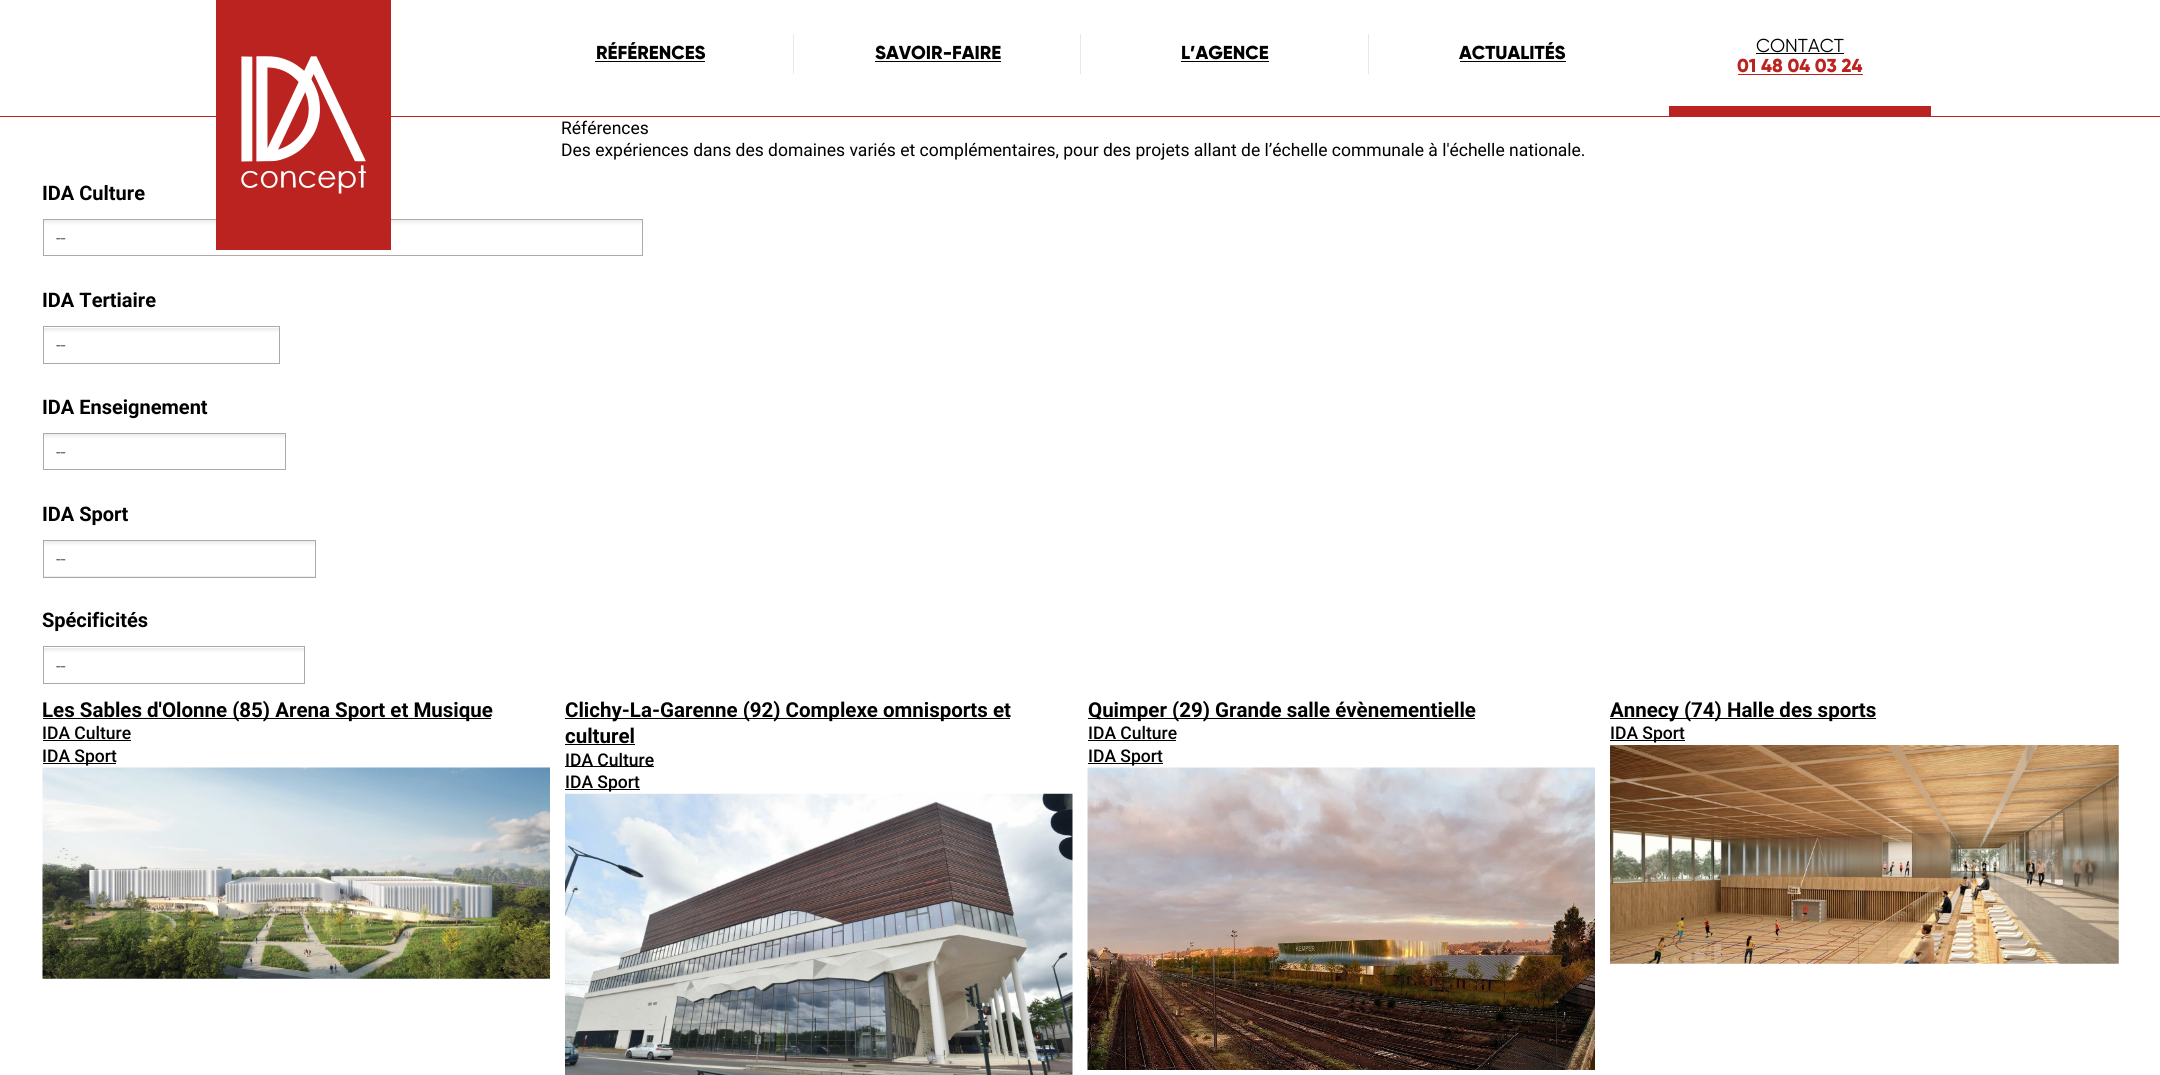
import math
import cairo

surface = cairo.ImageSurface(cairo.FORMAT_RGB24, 2160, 1075)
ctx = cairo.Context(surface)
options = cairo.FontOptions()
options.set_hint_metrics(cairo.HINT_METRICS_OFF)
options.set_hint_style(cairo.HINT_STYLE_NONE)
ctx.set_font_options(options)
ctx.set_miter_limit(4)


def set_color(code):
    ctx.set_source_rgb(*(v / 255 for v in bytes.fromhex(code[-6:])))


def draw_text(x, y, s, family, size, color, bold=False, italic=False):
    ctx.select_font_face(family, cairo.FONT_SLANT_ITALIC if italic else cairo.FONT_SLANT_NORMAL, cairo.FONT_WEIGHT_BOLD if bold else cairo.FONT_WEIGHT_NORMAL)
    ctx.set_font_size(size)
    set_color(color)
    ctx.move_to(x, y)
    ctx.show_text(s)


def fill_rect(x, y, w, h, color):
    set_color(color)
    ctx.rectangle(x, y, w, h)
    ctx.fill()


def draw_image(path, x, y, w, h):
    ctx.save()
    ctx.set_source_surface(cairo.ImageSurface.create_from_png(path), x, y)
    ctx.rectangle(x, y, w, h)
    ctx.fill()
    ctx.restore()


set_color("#ffffff")
ctx.paint()
fill_rect(0, 116, 2160, 1, "#ba231f")
gradient = cairo.LinearGradient(343, 220, 343, 255)
gradient.add_color_stop_rgba(0.01, 0.933, 0.933, 0.933, 1)
gradient.add_color_stop_rgba(0.15, 1, 1, 1, 1)
ctx.set_source(gradient)
ctx.rectangle(44, 220, 598, 5)
ctx.fill()
ctx.rectangle(43.5, 219.5, 599, 36)
set_color("#aaaaaa")
ctx.set_line_width(1)
ctx.stroke()
fill_rect(216, 0, 175, 250, "#ba231f")
draw_image("assets/img1.png", 241, 56, 125, 138)
draw_text(596, 59, "RÉFÉRENCES", "Gilroy ExtraBold", 18.75, "#000000")
fill_rect(595, 61, 110, 1, "#000000")
fill_rect(793, 34, 1, 40, "#e8e8e8")
draw_text(875, 59, "SAVOIR-FAIRE", "Gilroy ExtraBold", 18.75, "#000000")
fill_rect(875, 61, 126, 1, "#000000")
fill_rect(1080, 34, 1, 40, "#e8e8e8")
draw_text(1181, 59, "L’AGENCE", "Gilroy ExtraBold", 18.75, "#000000")
fill_rect(1181, 61, 88, 1, "#000000")
fill_rect(1368, 34, 1, 40, "#e8e8e8")
draw_text(1459, 59, "ACTUALITÉS", "Gilroy ExtraBold", 18.75, "#000000")
fill_rect(1460, 61, 106, 1, "#000000")
draw_text(1756, 52, "CONTACT", "Gilroy", 18.75, "#000000")
fill_rect(1756, 53, 88, 1, "#000000")
fill_rect(1669, 106, 262, 10, "#ba231f")
draw_text(1737, 72, "01 48 04 03 24", "Gilroy ExtraBold", 18.75, "#ba231f")
fill_rect(1738, 74, 125, 1, "#ba231f")
draw_text(561, 134, "Références", "Roboto", 17.5, "#000000")
draw_text(561, 156, "Des expériences dans des domaines variés et complémentaires, pour des projets allant de l’échelle communale à l'échelle nationale.", "Roboto", 17.5, "#000000")
draw_text(42, 200, "IDA Culture", "Roboto", 20, "#000000", bold=True)
draw_text(56, 244, "--", "Roboto", 17.5, "#666666")
draw_text(42, 307, "IDA Tertiaire", "Roboto", 20, "#000000", bold=True)
gradient = cairo.LinearGradient(161, 328, 161, 363)
gradient.add_color_stop_rgba(0.01, 0.933, 0.933, 0.933, 1)
gradient.add_color_stop_rgba(0.15, 1, 1, 1, 1)
ctx.set_source(gradient)
ctx.rectangle(44, 328, 235, 5)
ctx.fill()
ctx.rectangle(43.5, 326.5, 236, 37)
set_color("#aaaaaa")
ctx.stroke()
draw_text(56, 351, "--", "Roboto", 17.5, "#666666")
draw_text(42, 414, "IDA Enseignement", "Roboto", 20, "#000000", bold=True)
gradient = cairo.LinearGradient(164, 434, 164, 469)
gradient.add_color_stop_rgba(0.01, 0.933, 0.933, 0.933, 1)
gradient.add_color_stop_rgba(0.15, 1, 1, 1, 1)
ctx.set_source(gradient)
ctx.rectangle(44, 434, 241, 5)
ctx.fill()
ctx.rectangle(43.5, 433.5, 242, 36)
set_color("#aaaaaa")
ctx.stroke()
draw_text(56, 458, "--", "Roboto", 17.5, "#666666")
draw_text(42, 521, "IDA Sport", "Roboto", 20, "#000000", bold=True)
gradient = cairo.LinearGradient(179, 541, 179, 576)
gradient.add_color_stop_rgba(0.01, 0.933, 0.933, 0.933, 1)
gradient.add_color_stop_rgba(0.15, 1, 1, 1, 1)
ctx.set_source(gradient)
ctx.rectangle(44, 541, 271, 5)
ctx.fill()
gradient = cairo.LinearGradient(179, 576, 179, 611)
gradient.add_color_stop_rgba(0.01, 0.933, 0.933, 0.933, 1)
gradient.add_color_stop_rgba(0.15, 1, 1, 1, 1)
ctx.set_source(gradient)
ctx.rectangle(43, 576, 273, 1)
ctx.fill()
ctx.rectangle(43.5, 540.5, 272, 37)
set_color("#aaaaaa")
ctx.stroke()
draw_text(56, 565, "--", "Roboto", 17.5, "#666666")
draw_text(42, 627, "Spécificités", "Roboto", 20, "#000000", bold=True)
gradient = cairo.LinearGradient(174, 648, 174, 683)
gradient.add_color_stop_rgba(0.01, 0.933, 0.933, 0.933, 1)
gradient.add_color_stop_rgba(0.15, 1, 1, 1, 1)
ctx.set_source(gradient)
ctx.rectangle(44, 648, 260, 5)
ctx.fill()
ctx.rectangle(43.5, 646.5, 261, 37)
set_color("#aaaaaa")
ctx.stroke()
draw_text(56, 672, "--", "Roboto", 17.5, "#666666")
fill_rect(43, 718, 448, 1, "#000000")
draw_text(42, 717, "Les Sables d'Olonne (85) Arena Sport et Musique", "Roboto", 20.5, "#000000", bold=True)
draw_text(42, 739, "IDA Culture", "Roboto Medium", 17.5, "#000000")
fill_rect(43, 740, 88, 1, "#000000")
fill_rect(43, 763, 73, 1, "#000000")
draw_text(42, 762, "IDA Sport", "Roboto Medium", 17.5, "#000000")
draw_image("assets/img2.png", 42, 767, 508, 212)
fill_rect(565, 718, 445, 1, "#000000")
draw_text(565, 717, "Clichy-La-Garenne (92) Complexe omnisports et", "Roboto", 20.5, "#000000", bold=True)
draw_text(565, 743, "culturel", "Roboto", 20.5, "#000000", bold=True)
fill_rect(565, 744, 70, 1, "#000000")
fill_rect(565, 766, 89, 1, "#000000")
draw_text(565, 766, "IDA Culture", "Roboto Medium", 17.5, "#000000")
fill_rect(565, 789, 75, 1, "#000000")
draw_text(565, 788, "IDA Sport", "Roboto Medium", 17.5, "#000000")
draw_image("assets/img3.png", 565, 793, 508, 282)
fill_rect(1088, 718, 387, 1, "#000000")
draw_text(1088, 717, "Quimper (29) Grande salle évènementielle", "Roboto", 20.5, "#000000", bold=True)
draw_text(1088, 739, "IDA Culture", "Roboto Medium", 17.5, "#000000")
fill_rect(1088, 740, 88, 1, "#000000")
fill_rect(1088, 763, 75, 1, "#000000")
draw_text(1088, 762, "IDA Sport", "Roboto Medium", 17.5, "#000000")
draw_image("assets/img4.png", 1087, 767, 508, 303)
fill_rect(1610, 718, 266, 1, "#000000")
draw_text(1610, 717, "Annecy (74) Halle des sports", "Roboto", 20.5, "#000000", bold=True)
fill_rect(1610, 740, 75, 1, "#000000")
draw_text(1610, 739, "IDA Sport", "Roboto Medium", 17.5, "#000000")
draw_image("assets/img5.png", 1610, 745, 509, 219)
surface.write_to_png("output.png")
